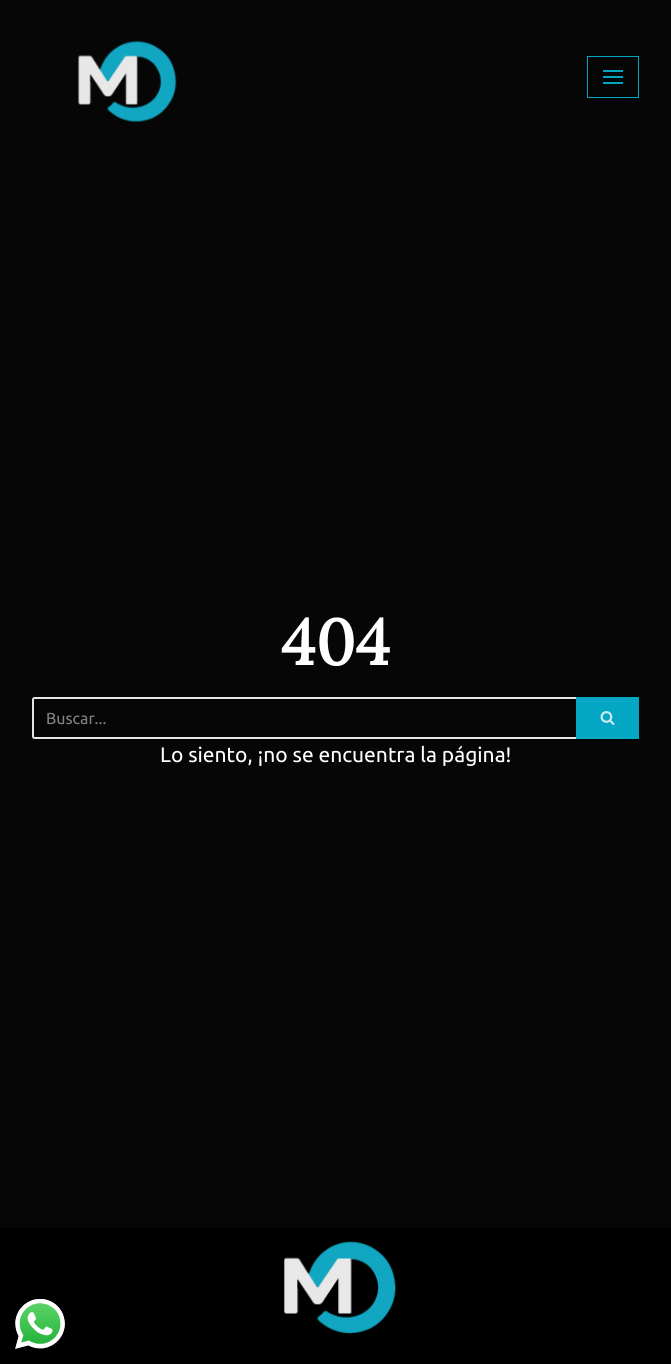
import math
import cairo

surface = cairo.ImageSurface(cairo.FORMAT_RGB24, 671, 1364)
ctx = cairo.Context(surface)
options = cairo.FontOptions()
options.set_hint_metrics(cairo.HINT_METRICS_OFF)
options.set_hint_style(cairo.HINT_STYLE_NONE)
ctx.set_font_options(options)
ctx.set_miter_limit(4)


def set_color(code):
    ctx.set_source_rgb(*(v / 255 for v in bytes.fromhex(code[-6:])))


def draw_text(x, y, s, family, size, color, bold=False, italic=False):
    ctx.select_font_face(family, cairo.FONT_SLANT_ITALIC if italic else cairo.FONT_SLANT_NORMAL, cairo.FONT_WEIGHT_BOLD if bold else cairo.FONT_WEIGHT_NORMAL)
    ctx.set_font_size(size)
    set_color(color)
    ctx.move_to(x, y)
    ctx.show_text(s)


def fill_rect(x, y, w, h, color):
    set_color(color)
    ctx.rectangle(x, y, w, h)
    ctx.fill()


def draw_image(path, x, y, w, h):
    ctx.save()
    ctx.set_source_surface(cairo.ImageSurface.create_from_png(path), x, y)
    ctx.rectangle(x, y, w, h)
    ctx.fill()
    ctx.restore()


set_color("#060606")
ctx.paint()
draw_image("assets/img1.png", 78, 40, 99, 83)
ctx.rectangle(587.5, 56.5, 51, 41)
set_color("#04a7c3")
ctx.set_line_width(1)
ctx.stroke()
draw_image("assets/img2.png", 603, 70, 20, 14)
draw_text(281, 665, "404", "Lora", 64, "#ffffff", bold=True)
set_color("#e5e5e5")
ctx.set_fill_rule(cairo.FILL_RULE_EVEN_ODD)
ctx.new_path()
ctx.move_to(35, 697)
ctx.line_to(576, 697)
ctx.line_to(576, 739)
ctx.line_to(35, 739)
ctx.curve_to(33, 739, 32, 738, 32, 736)
ctx.line_to(32, 700)
ctx.curve_to(32, 698, 33, 697, 35, 697)
ctx.close_path()
ctx.move_to(35, 699)
ctx.line_to(576, 699)
ctx.line_to(576, 737)
ctx.line_to(35, 737)
ctx.curve_to(34, 737, 34, 737, 34, 736)
ctx.line_to(34, 700)
ctx.curve_to(34, 699, 34, 699, 35, 699)
ctx.close_path()
ctx.fill()
draw_text(46, 724, "Buscar...", "Ubuntu", 16, "#838383")
fill_rect(576, 697, 63, 42, "#04a7c3")
draw_image("assets/img3.png", 600, 711, 15, 14)
draw_text(160, 762, "Lo siento, ¡no se encuentra la página!", "Ubuntu", 21, "#ffffff")
fill_rect(0, 1228, 671, 136, "#000000")
draw_image("assets/img4.png", 284, 1241, 112, 93)
draw_image("assets/img5.png", 15, 1299, 50, 50)
surface.write_to_png("output.png")
